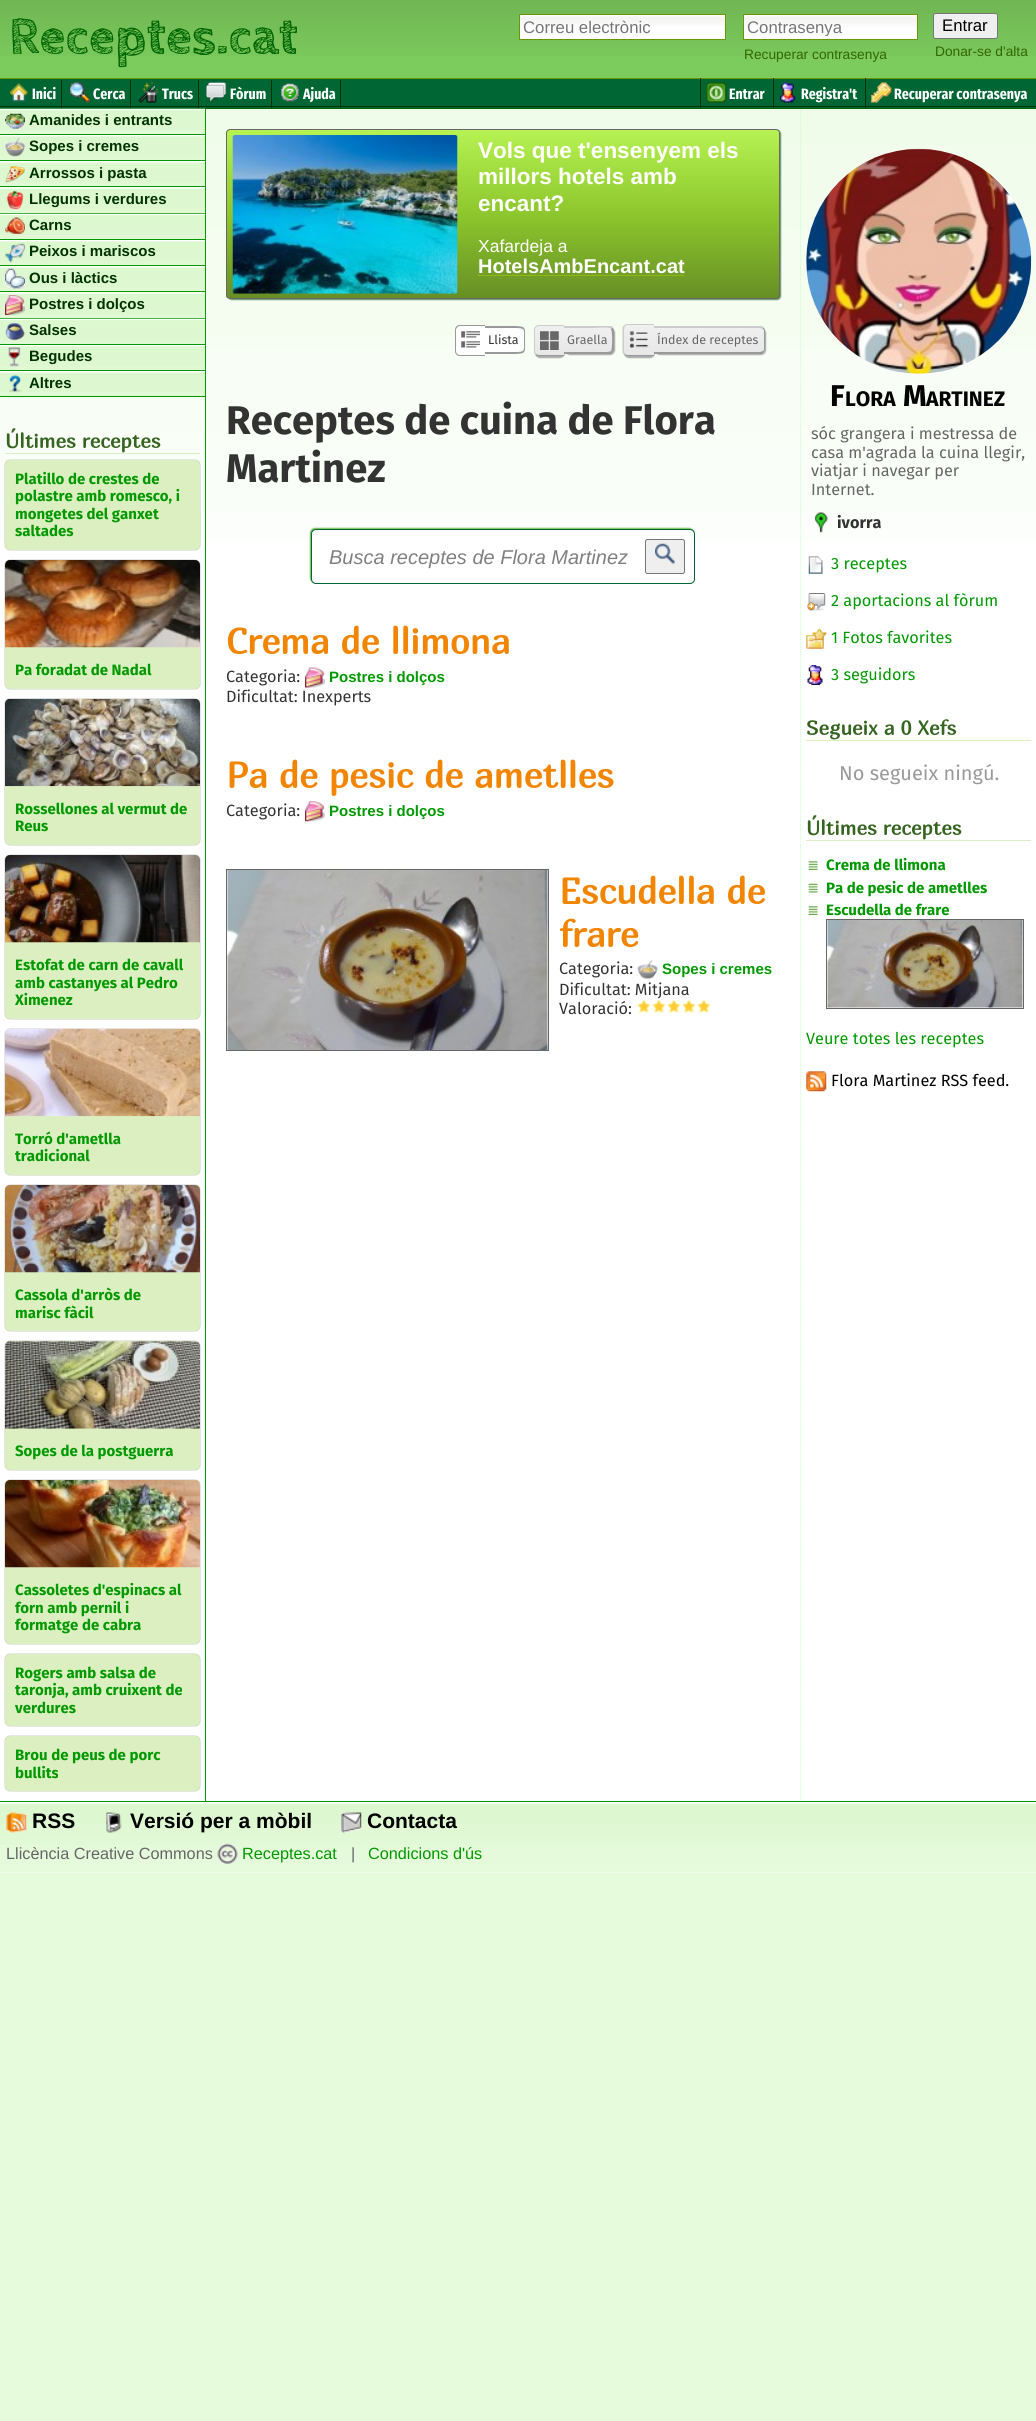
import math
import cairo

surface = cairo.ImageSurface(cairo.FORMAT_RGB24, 1036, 2421)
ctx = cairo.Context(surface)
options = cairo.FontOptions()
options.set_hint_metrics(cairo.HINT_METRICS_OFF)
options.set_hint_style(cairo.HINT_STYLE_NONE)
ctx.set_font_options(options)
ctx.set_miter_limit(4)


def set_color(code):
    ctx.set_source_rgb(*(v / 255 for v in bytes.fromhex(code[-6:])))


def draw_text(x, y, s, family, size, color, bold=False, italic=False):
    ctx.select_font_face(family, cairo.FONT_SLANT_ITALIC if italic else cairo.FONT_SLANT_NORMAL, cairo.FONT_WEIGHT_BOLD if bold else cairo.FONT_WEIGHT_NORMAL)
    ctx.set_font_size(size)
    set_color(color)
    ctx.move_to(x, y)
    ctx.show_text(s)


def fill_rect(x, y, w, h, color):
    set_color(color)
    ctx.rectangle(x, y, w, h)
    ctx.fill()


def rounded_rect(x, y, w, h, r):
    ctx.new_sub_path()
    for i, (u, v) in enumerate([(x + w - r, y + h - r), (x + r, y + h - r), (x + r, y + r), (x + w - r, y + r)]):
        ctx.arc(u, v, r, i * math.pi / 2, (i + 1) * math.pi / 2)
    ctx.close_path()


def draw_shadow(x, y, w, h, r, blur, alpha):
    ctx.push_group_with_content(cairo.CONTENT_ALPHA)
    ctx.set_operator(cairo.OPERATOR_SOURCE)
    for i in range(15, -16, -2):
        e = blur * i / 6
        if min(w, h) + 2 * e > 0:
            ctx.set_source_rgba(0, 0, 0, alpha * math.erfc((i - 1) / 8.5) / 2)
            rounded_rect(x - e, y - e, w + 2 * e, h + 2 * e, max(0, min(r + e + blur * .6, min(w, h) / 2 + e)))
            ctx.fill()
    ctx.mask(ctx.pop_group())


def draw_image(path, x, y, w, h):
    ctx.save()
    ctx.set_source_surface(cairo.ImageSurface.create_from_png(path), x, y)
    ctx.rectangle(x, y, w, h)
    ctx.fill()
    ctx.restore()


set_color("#e6fadc")
ctx.paint()
fill_rect(0, 540, 1036, 1333, "#ffffff")
draw_image("assets/img1.png", 0, 109, 1036, 431)
fill_rect(0, 56, 1036, 22, "#7ccc5d")
draw_image("assets/img2.png", 0, 0, 1036, 56)
fill_rect(0, 78, 1036, 1, "#669900")
draw_text(9, 53, "Receptes.cat", "Cabin Sketch", 52.5, "#006600", bold=True)
fill_rect(520, 15, 205, 24, "#ffffff")
draw_image("assets/img3.png", 518, 16, 209, 10)
ctx.rectangle(519.5, 14.5, 206, 25)
set_color("#669900")
ctx.set_line_width(1)
ctx.stroke()
draw_text(523, 33, "Correu electrònic", "Liberation Sans", 16.75, "#757575")
fill_rect(744, 15, 173, 24, "#ffffff")
draw_image("assets/img4.png", 742, 16, 175, 11)
ctx.rectangle(743.5, 14.5, 174, 25)
set_color("#669900")
ctx.stroke()
ctx.save()
ctx.rectangle(746, 18, 168, 18)
ctx.clip()
draw_text(747, 33, "Contrasenya", "Liberation Sans", 16.75, "#757575")
ctx.restore()
draw_text(744, 59, "Recuperar contrasenya", "Liberation Sans", 13.75, "#336600")
set_color("#efefef")
rounded_rect(933.5, 13.5, 64, 25, 2)
ctx.fill_preserve()
set_color("#767676")
ctx.stroke()
draw_text(942, 31, "Entrar", "Liberation Sans", 16.75, "#000000")
draw_text(935, 56, "Donar-se d'alta", "Liberation Sans", 13.75, "#336600")
fill_rect(0, 79, 1036, 29, "#006633")
fill_rect(0, 106, 1036, 1, "#003300")
draw_image("assets/img5.png", 9, 83, 19, 19)
draw_text(32, 99, "Inici", "Fira Sans Extra Condensed", 15, "#ffffff", bold=True)
fill_rect(61, 80, 1, 28, "#003300")
draw_image("assets/img6.png", 70, 82, 20, 21)
draw_text(93, 99, "Cerca", "Fira Sans Extra Condensed", 15, "#ffffff", bold=True)
fill_rect(130, 80, 1, 28, "#003300")
draw_image("assets/img7.png", 138, 82, 21, 21)
draw_text(162, 99, "Trucs", "Fira Sans Extra Condensed", 15, "#ffffff", bold=True)
fill_rect(198, 80, 1, 28, "#003300")
draw_image("assets/img8.png", 206, 82, 21, 20)
draw_text(230, 99, "Fòrum", "Fira Sans Extra Condensed", 15, "#ffffff", bold=True)
fill_rect(271, 80, 1, 28, "#003300")
draw_image("assets/img9.png", 281, 83, 18, 19)
draw_text(303, 99, "Ajuda", "Fira Sans Extra Condensed", 15, "#ffffff", bold=True)
fill_rect(340, 80, 1, 28, "#003300")
draw_image("assets/img10.png", 706, 82, 21, 21)
draw_text(729, 99, "Entrar", "Fira Sans Extra Condensed", 15, "#ffffff", bold=True)
fill_rect(700, 78, 1, 30, "#003300")
fill_rect(773, 78, 1, 30, "#003300")
draw_image("assets/img11.png", 779, 82, 17, 21)
draw_text(801, 99, "Registra't", "Fira Sans Extra Condensed", 15, "#ffffff", bold=True)
fill_rect(865, 78, 1, 30, "#003300")
draw_image("assets/img12.png", 871, 82, 21, 21)
draw_text(894, 99, "Recuperar contrasenya", "Fira Sans Extra Condensed", 15, "#ffffff", bold=True)
fill_rect(0, 108, 1036, 1, "#006600")
fill_rect(205, 109, 1, 1692, "#009900")
draw_image("assets/img13.png", 0, 108, 205, 26)
fill_rect(0, 134, 205, 1, "#009900")
draw_image("assets/img14.png", 5, 113, 20, 16)
draw_text(29, 125, "Amanides i entrants", "Liberation Sans", 15, "#003300", bold=True)
fill_rect(0, 135, 205, 1, "#ffffff")
draw_image("assets/img15.png", 0, 136, 205, 26)
fill_rect(0, 160, 205, 1, "#009900")
draw_image("assets/img16.png", 5, 137, 20, 20)
draw_text(29, 151, "Sopes i cremes", "Liberation Sans", 15, "#003300", bold=True)
draw_image("assets/img17.png", 0, 161, 205, 27)
fill_rect(0, 186, 205, 1, "#009900")
draw_image("assets/img18.png", 5, 166, 20, 17)
draw_text(29, 178, "Arrossos i pasta", "Liberation Sans", 15, "#003300", bold=True)
draw_image("assets/img19.png", 0, 187, 205, 26)
fill_rect(0, 213, 205, 1, "#009900")
draw_image("assets/img20.png", 6, 190, 18, 20)
draw_text(29, 204, "Llegums i verdures", "Liberation Sans", 15, "#003300", bold=True)
draw_image("assets/img21.png", 0, 213, 205, 26)
fill_rect(0, 239, 205, 1, "#009900")
draw_image("assets/img22.png", 5, 217, 20, 18)
draw_text(29, 230, "Carns", "Liberation Sans", 15, "#003300", bold=True)
fill_rect(0, 240, 205, 1, "#ffffff")
draw_image("assets/img15.png", 0, 241, 205, 26)
fill_rect(0, 265, 205, 1, "#009900")
draw_image("assets/img23.png", 5, 243, 20, 20)
draw_text(29, 256, "Peixos i mariscos", "Liberation Sans", 15, "#003300", bold=True)
draw_image("assets/img24.png", 0, 266, 205, 27)
fill_rect(0, 291, 205, 1, "#009900")
draw_image("assets/img25.png", 5, 268, 20, 21)
draw_text(29, 283, "Ous i làctics", "Liberation Sans", 15, "#003300", bold=True)
draw_image("assets/img26.png", 0, 292, 205, 26)
fill_rect(0, 318, 205, 1, "#009900")
draw_image("assets/img27.png", 5, 295, 20, 20)
draw_text(29, 309, "Postres i dolços", "Liberation Sans", 15, "#003300", bold=True)
draw_image("assets/img21.png", 0, 318, 205, 26)
fill_rect(0, 344, 205, 1, "#009900")
draw_image("assets/img28.png", 5, 323, 20, 18)
draw_text(29, 335, "Salses", "Liberation Sans", 15, "#003300", bold=True)
fill_rect(0, 345, 205, 1, "#ffffff")
fill_rect(0, 371, 205, 27, "#ffffff")
draw_image("assets/img29.png", 0, 346, 205, 26)
fill_rect(0, 370, 205, 1, "#009900")
draw_image("assets/img30.png", 8, 347, 13, 20)
draw_text(29, 361, "Begudes", "Liberation Sans", 15, "#003300", bold=True)
draw_image("assets/img24.png", 0, 371, 205, 27)
fill_rect(0, 396, 205, 1, "#009900")
draw_image("assets/img31.png", 9, 374, 13, 19)
draw_text(29, 388, "Altres", "Liberation Sans", 15, "#003300", bold=True)
fill_rect(5, 453, 195, 1, "#dbefc1")
draw_text(5, 448, "Últimes receptes", "Marmelad", 20, "#356520", bold=True)
set_color("#999999")
draw_shadow(5, 460, 195, 90, 5, 0.5, 1)
set_color("#dbefc1")
rounded_rect(5, 460, 195, 90, 5)
ctx.fill()
draw_text(15, 484, "Platillo de crestes de", "Fira Sans", 15, "#009900", bold=True)
draw_text(15, 501, "polastre amb romesco, i", "Fira Sans", 15, "#009900", bold=True)
draw_text(15, 519, "mongetes del ganxet", "Fira Sans", 15, "#009900", bold=True)
draw_text(15, 536, "saltades", "Fira Sans", 15, "#009900", bold=True)
set_color("#999999")
draw_shadow(5, 560, 195, 129, 5, 0.5, 1)
set_color("#dbefc1")
rounded_rect(5, 560, 195, 129, 5)
ctx.fill()
draw_image("assets/img32.png", 5, 560, 195, 88)
draw_text(15, 675, "Pa foradat de Nadal", "Fira Sans", 15, "#009900", bold=True)
set_color("#999999")
draw_shadow(5, 699, 195, 146, 5, 0.5, 1)
set_color("#dbefc1")
rounded_rect(5, 699, 195, 146, 5)
ctx.fill()
draw_image("assets/img33.png", 5, 698, 195, 89)
draw_text(15, 814, "Rossellones al vermut de", "Fira Sans", 15, "#009900", bold=True)
draw_text(15, 831, "Reus", "Fira Sans", 15, "#009900", bold=True)
set_color("#999999")
draw_shadow(5, 855, 195, 164, 5, 0.5, 1)
set_color("#dbefc1")
rounded_rect(5, 855, 195, 164, 5)
ctx.fill()
draw_image("assets/img34.png", 5, 855, 195, 88)
draw_text(15, 970, "Estofat de carn de cavall", "Fira Sans", 15, "#009900", bold=True)
draw_text(15, 988, "amb castanyes al Pedro", "Fira Sans", 15, "#009900", bold=True)
draw_text(15, 1005, "Ximenez", "Fira Sans", 15, "#009900", bold=True)
set_color("#999999")
draw_shadow(5, 1029, 195, 146, 5, 0.5, 1)
set_color("#dbefc1")
rounded_rect(5, 1029, 195, 146, 5)
ctx.fill()
draw_image("assets/img35.png", 5, 1028, 195, 89)
draw_text(15, 1144, "Torró d'ametlla", "Fira Sans", 15, "#009900", bold=True)
draw_text(15, 1161, "tradicional", "Fira Sans", 15, "#009900", bold=True)
set_color("#999999")
draw_shadow(5, 1185, 195, 146, 5, 0.5, 1)
set_color("#dbefc1")
rounded_rect(5, 1185, 195, 146, 5)
ctx.fill()
draw_image("assets/img36.png", 5, 1185, 195, 88)
draw_text(15, 1300, "Cassola d'arròs de", "Fira Sans", 15, "#009900", bold=True)
draw_text(15, 1318, "marisc fàcil", "Fira Sans", 15, "#009900", bold=True)
set_color("#999999")
draw_shadow(5, 1341, 195, 129, 5, 0.5, 1)
set_color("#dbefc1")
rounded_rect(5, 1341, 195, 129, 5)
ctx.fill()
draw_image("assets/img37.png", 5, 1341, 195, 88)
draw_text(15, 1456, "Sopes de la postguerra", "Fira Sans", 15, "#009900", bold=True)
set_color("#999999")
draw_shadow(5, 1480, 195, 164, 5, 0.5, 1)
set_color("#dbefc1")
rounded_rect(5, 1480, 195, 164, 5)
ctx.fill()
draw_image("assets/img38.png", 5, 1480, 195, 88)
draw_text(15, 1595, "Cassoletes d'espinacs al", "Fira Sans", 15, "#009900", bold=True)
draw_text(15, 1613, "forn amb pernil i", "Fira Sans", 15, "#009900", bold=True)
draw_text(15, 1630, "formatge de cabra", "Fira Sans", 15, "#009900", bold=True)
set_color("#999999")
draw_shadow(5, 1654, 195, 72, 5, 0.5, 1)
set_color("#dbefc1")
rounded_rect(5, 1654, 195, 72, 5)
ctx.fill()
draw_text(15, 1678, "Rogers amb salsa de", "Fira Sans", 15, "#009900", bold=True)
draw_text(15, 1695, "taronja, amb cruixent de", "Fira Sans", 15, "#009900", bold=True)
draw_text(15, 1713, "verdures", "Fira Sans", 15, "#009900", bold=True)
set_color("#999999")
draw_shadow(5, 1736, 195, 55, 5, 0.5, 1)
set_color("#dbefc1")
rounded_rect(5, 1736, 195, 55, 5)
ctx.fill()
draw_text(15, 1760, "Brou de peus de porc", "Fira Sans", 15, "#009900", bold=True)
draw_text(15, 1778, "bullits", "Fira Sans", 15, "#009900", bold=True)
set_color("#669966")
draw_shadow(228, 130, 553, 170, 4, 0.5, 1)
ctx.save()
rounded_rect(226, 129, 554, 170, 4)
ctx.clip()
gradient = cairo.LinearGradient(503, 298, 503, 130)
gradient.add_color_stop_rgba(0, 0.404, 0.561, 0.145, 1)
gradient.add_color_stop_rgba(0.5, 0.553, 0.78, 0.176, 1)
gradient.add_color_stop_rgba(1, 0.714, 0.949, 0.322, 1)
ctx.set_source(gradient)
ctx.rectangle(226, 130, 554, 168)
ctx.fill()
ctx.restore()
rounded_rect(226.5, 129.5, 553, 169, 3.5)
set_color("#676767")
ctx.stroke()
draw_image("assets/img39.png", 232, 135, 226, 159)
draw_text(478, 158, "Vols que t'ensenyem els", "Liberation Sans", 22.5, "#ffffff", bold=True)
draw_text(478, 184, "millors hotels amb", "Liberation Sans", 22.5, "#ffffff", bold=True)
draw_text(478, 211, "encant?", "Liberation Sans", 22.5, "#ffffff", bold=True)
draw_text(478, 252, "Xafardeja a", "Liberation Sans", 17.5, "#ffffff")
draw_text(478, 273, "HotelsAmbEncant.cat", "Liberation Sans", 20, "#ffffff", bold=True)
fill_rect(478, 275, 206, 1, "#93b715")
set_color("#ffffff")
ctx.new_path()
ctx.move_to(460, 325)
ctx.line_to(485, 325)
ctx.line_to(485, 356)
ctx.line_to(460, 356)
ctx.curve_to(457, 356, 455, 354, 455, 351)
ctx.line_to(455, 330)
ctx.curve_to(455, 327, 457, 325, 460, 325)
ctx.close_path()
ctx.fill()
set_color("#999999")
ctx.set_fill_rule(cairo.FILL_RULE_EVEN_ODD)
ctx.new_path()
ctx.move_to(460, 325)
ctx.line_to(485, 325)
ctx.line_to(485, 356)
ctx.line_to(460, 356)
ctx.curve_to(457, 356, 455, 354, 455, 351)
ctx.line_to(455, 330)
ctx.curve_to(455, 327, 457, 325, 460, 325)
ctx.close_path()
ctx.move_to(460, 326)
ctx.line_to(485, 326)
ctx.line_to(485, 355)
ctx.line_to(460, 355)
ctx.curve_to(458, 355, 456, 353.5, 456, 351)
ctx.line_to(456, 330)
ctx.curve_to(456, 328, 458, 326, 460, 326)
ctx.close_path()
ctx.fill()
draw_image("assets/img40.png", 461, 331, 19, 17)
set_color("#ffffff")
ctx.new_path()
ctx.move_to(485, 326)
ctx.line_to(520, 326)
ctx.curve_to(523, 326, 525, 328, 525, 331)
ctx.line_to(525, 349)
ctx.curve_to(525, 352, 523, 354, 520, 354)
ctx.line_to(485, 354)
ctx.close_path()
ctx.fill()
set_color("#999999")
ctx.new_path()
ctx.move_to(485, 326)
ctx.line_to(514, 326)
ctx.curve_to(527, 326, 525, 328, 525, 340)
ctx.curve_to(525, 352, 527, 354, 514, 354)
ctx.line_to(485, 354)
ctx.close_path()
ctx.move_to(485, 328)
ctx.line_to(514, 328)
ctx.curve_to(526, 328, 524, 329, 524, 340)
ctx.curve_to(524, 351, 526, 352, 514, 352)
ctx.line_to(485, 352)
ctx.close_path()
ctx.fill()
draw_text(488, 344, "Llista", "Fira Sans", 12.5, "#333333")
set_color("#aaaaaa")
draw_shadow(535, 326, 30, 32, 5, 0.5, 1)
ctx.save()
ctx.set_fill_rule(cairo.FILL_RULE_WINDING)
ctx.new_path()
ctx.move_to(539, 325)
ctx.line_to(564, 325)
ctx.line_to(564, 356)
ctx.line_to(539, 356)
ctx.curve_to(536, 356, 534, 354, 534, 351)
ctx.line_to(534, 330)
ctx.curve_to(534, 327, 536, 325, 539, 325)
ctx.close_path()
ctx.clip()
gradient = cairo.LinearGradient(549, 326, 549, 355)
gradient.add_color_stop_rgba(0, 0.941, 0.941, 0.941, 1)
gradient.add_color_stop_rgba(1, 0.906, 0.906, 0.906, 1)
ctx.set_source(gradient)
ctx.rectangle(534, 326, 30, 29)
ctx.fill()
ctx.restore()
draw_image("assets/img41.png", 540, 331, 19, 19)
set_color("#cccccc")
ctx.set_fill_rule(cairo.FILL_RULE_WINDING)
ctx.new_path()
ctx.move_to(539, 325)
ctx.line_to(564, 325)
ctx.line_to(564, 326)
ctx.line_to(539, 326)
ctx.curve_to(537.5, 326, 536.5, 326.5, 536, 327.5)
ctx.line_to(535.5, 326.5)
ctx.curve_to(536, 325.5, 537.5, 325, 539, 325)
ctx.close_path()
ctx.fill()
set_color("#999999")
ctx.new_path()
ctx.move_to(564, 356)
ctx.line_to(539, 356)
ctx.curve_to(537.5, 356, 536, 355.5, 535.5, 354.5)
ctx.line_to(536, 354)
ctx.curve_to(537, 354.5, 538, 355, 539, 355)
ctx.line_to(564, 355)
ctx.close_path()
ctx.fill()
set_color("#aaaaaa")
draw_shadow(565, 328, 50, 27, 5, 0.5, 1)
ctx.save()
ctx.new_path()
ctx.move_to(564, 326)
ctx.line_to(609, 326)
ctx.curve_to(612, 326, 614, 328, 614, 331)
ctx.line_to(614, 349)
ctx.curve_to(614, 352, 612, 354, 609, 354)
ctx.line_to(564, 354)
ctx.close_path()
ctx.clip()
gradient = cairo.LinearGradient(588, 328, 588, 353)
gradient.add_color_stop_rgba(0, 0.941, 0.941, 0.941, 1)
gradient.add_color_stop_rgba(1, 0.906, 0.906, 0.906, 1)
ctx.set_source(gradient)
ctx.rectangle(564, 328, 50, 25)
ctx.fill()
ctx.restore()
draw_text(567, 344, "Graella", "Fira Sans", 12.5, "#666666")
set_color("#cccccc")
ctx.new_path()
ctx.move_to(536, 354)
ctx.line_to(535.5, 354.5)
ctx.curve_to(534.5, 354, 534, 352.5, 534, 351)
ctx.line_to(534, 330)
ctx.curve_to(534, 328.5, 534.5, 327.5, 535.5, 326.5)
ctx.line_to(536, 327.5)
ctx.curve_to(535.5, 328, 535, 329, 535, 330)
ctx.line_to(535, 351)
ctx.curve_to(535, 352, 535.5, 353, 536, 354)
ctx.close_path()
ctx.fill()
ctx.save()
ctx.new_path()
ctx.move_to(564, 326)
ctx.line_to(609, 326)
ctx.curve_to(612, 326, 614, 328, 614, 331)
ctx.line_to(614, 349)
ctx.curve_to(614, 352, 612, 354, 609, 354)
ctx.line_to(564, 354)
ctx.close_path()
ctx.clip()
gradient = cairo.LinearGradient(588, 303, 588, 328)
gradient.add_color_stop_rgba(0, 0.941, 0.941, 0.941, 1)
gradient.add_color_stop_rgba(1, 0.906, 0.906, 0.906, 1)
ctx.set_source(gradient)
ctx.rectangle(594, 326, 20, 2)
ctx.fill()
ctx.restore()
ctx.new_path()
ctx.move_to(564, 328)
ctx.line_to(564, 326)
ctx.line_to(611, 326)
ctx.line_to(613, 327)
ctx.line_to(611, 329)
ctx.curve_to(609, 326, 597, 328, 594, 328)
ctx.close_path()
ctx.fill()
set_color("#999999")
ctx.new_path()
ctx.move_to(611, 351)
ctx.curve_to(612.5, 348.5, 612.5, 331.5, 611, 329)
ctx.line_to(612.5, 327.5)
ctx.line_to(614, 329.5)
ctx.line_to(614, 350.5)
ctx.line_to(612.5, 352.5)
ctx.close_path()
ctx.fill()
ctx.new_path()
ctx.move_to(611, 354)
ctx.line_to(564, 354)
ctx.line_to(564, 352)
ctx.line_to(608, 352)
ctx.line_to(611, 351)
ctx.line_to(613, 353)
ctx.close_path()
ctx.fill()
set_color("#aaaaaa")
draw_shadow(624, 325, 31, 33, 5, 0.5, 1)
ctx.save()
ctx.new_path()
ctx.move_to(628, 324)
ctx.line_to(654, 324)
ctx.line_to(654, 356)
ctx.line_to(628, 356)
ctx.curve_to(625, 356, 623, 354, 623, 351)
ctx.line_to(623, 329)
ctx.curve_to(623, 326, 625, 324, 628, 324)
ctx.close_path()
ctx.clip()
gradient = cairo.LinearGradient(639, 325, 639, 355)
gradient.add_color_stop_rgba(0, 0.941, 0.941, 0.941, 1)
gradient.add_color_stop_rgba(1, 0.906, 0.906, 0.906, 1)
ctx.set_source(gradient)
ctx.rectangle(623, 325, 31, 30)
ctx.fill()
ctx.restore()
draw_image("assets/img42.png", 629, 331, 20, 17)
set_color("#cccccc")
ctx.new_path()
ctx.move_to(627.5, 324)
ctx.line_to(654, 324)
ctx.line_to(654, 325)
ctx.line_to(627.5, 325)
ctx.curve_to(626.5, 325, 625.5, 325.5, 625, 326)
ctx.line_to(624, 325.5)
ctx.curve_to(625, 324.5, 626, 324, 627.5, 324)
ctx.close_path()
ctx.fill()
set_color("#999999")
ctx.new_path()
ctx.move_to(654, 356)
ctx.line_to(627.5, 356)
ctx.curve_to(626, 356, 625, 355.5, 624, 354.5)
ctx.line_to(625, 354)
ctx.curve_to(625.5, 354.5, 626.5, 355, 627.5, 355)
ctx.line_to(654, 355)
ctx.close_path()
ctx.fill()
set_color("#aaaaaa")
draw_shadow(655, 328, 111, 27, 5, 0.5, 1)
ctx.save()
ctx.new_path()
ctx.move_to(654, 326)
ctx.line_to(760, 326)
ctx.curve_to(763, 326, 765, 328, 765, 331)
ctx.line_to(765, 349)
ctx.curve_to(765, 352, 763, 354, 760, 354)
ctx.line_to(654, 354)
ctx.close_path()
ctx.clip()
gradient = cairo.LinearGradient(709, 328, 709, 353)
gradient.add_color_stop_rgba(0, 0.941, 0.941, 0.941, 1)
gradient.add_color_stop_rgba(1, 0.906, 0.906, 0.906, 1)
ctx.set_source(gradient)
ctx.rectangle(654, 328, 111, 25)
ctx.fill()
ctx.restore()
draw_text(657, 344, "Índex de receptes", "Fira Sans", 12.5, "#666666")
set_color("#cccccc")
ctx.new_path()
ctx.move_to(625, 354)
ctx.line_to(624, 354.5)
ctx.curve_to(623, 354, 622.5, 352.5, 622.5, 351)
ctx.line_to(622.5, 329)
ctx.curve_to(622.5, 327.5, 623, 326, 624, 325.5)
ctx.line_to(625, 326)
ctx.curve_to(624.5, 327, 624, 328, 624, 329)
ctx.line_to(624, 351)
ctx.curve_to(624, 352, 624.5, 353, 625, 354)
ctx.close_path()
ctx.fill()
ctx.new_path()
ctx.move_to(654, 328)
ctx.line_to(654, 326)
ctx.line_to(762, 326)
ctx.line_to(764, 328)
ctx.line_to(763, 329)
ctx.line_to(760, 328)
ctx.close_path()
ctx.fill()
set_color("#999999")
ctx.new_path()
ctx.move_to(762.5, 351.5)
ctx.curve_to(763.5, 351, 764, 350, 764, 349)
ctx.line_to(764, 331)
ctx.curve_to(764, 330, 763.5, 329, 762.5, 328.5)
ctx.line_to(763.5, 327.5)
ctx.curve_to(764.5, 328.5, 765, 329.5, 765, 331)
ctx.line_to(765, 349)
ctx.curve_to(765, 350.5, 764.5, 351.5, 763.5, 352.5)
ctx.close_path()
ctx.fill()
ctx.new_path()
ctx.move_to(762, 354)
ctx.line_to(654, 354)
ctx.line_to(654, 352)
ctx.line_to(760, 352)
ctx.line_to(763, 351)
ctx.line_to(764, 352)
ctx.close_path()
ctx.fill()
draw_text(226, 434, "Receptes de cuina de Flora", "Fira Sans", 40, "#333333", bold=True)
draw_text(226, 482, "Martinez", "Fira Sans", 40, "#333333", bold=True)
set_color("#75bf57")
draw_shadow(310, 528, 384, 55, 5, 0.5, 1)
set_color("#ffffff")
rounded_rect(311.5, 529.5, 383, 54, 4.5)
ctx.fill_preserve()
set_color("#006633")
ctx.stroke()
draw_text(329, 564, "Busca receptes de Flora Martinez", "Liberation Sans", 20, "#808080", italic=True)
set_color("#efefef")
rounded_rect(645.5, 539.5, 39, 34, 2)
ctx.fill_preserve()
set_color("#767676")
ctx.stroke()
draw_image("assets/img43.png", 655, 543, 20, 21)
draw_text(226, 654, "Crema de llimona", "Marmelad", 36, "#f28500", bold=True)
draw_text(226, 682, "Categoria:", "Fira Sans", 16.25, "#333333")
draw_image("assets/img44.png", 305, 667, 20, 21)
draw_text(329, 682, "Postres i dolços", "Liberation Sans", 15, "#009900", bold=True)
draw_text(226, 702, "Dificultat: Inexperts", "Fira Sans", 16.25, "#333333")
draw_text(226, 788, "Pa de pesic de ametlles", "Marmelad", 36, "#f28500", bold=True)
draw_text(226, 816, "Categoria:", "Fira Sans", 16.25, "#333333")
draw_image("assets/img45.png", 305, 801, 20, 21)
draw_text(329, 816, "Postres i dolços", "Liberation Sans", 15, "#009900", bold=True)
ctx.rectangle(226.5, 869.5, 322, 181)
set_color("#666666")
ctx.stroke()
draw_image("assets/img46.png", 227, 870, 321, 180)
draw_text(559, 904, "Escudella de", "Marmelad", 36, "#f28500", bold=True)
draw_text(559, 947, "frare", "Marmelad", 36, "#f28500", bold=True)
draw_text(559, 974, "Categoria:", "Fira Sans", 16.25, "#333333")
draw_image("assets/img47.png", 637, 960, 21, 20)
draw_text(662, 974, "Sopes i cremes", "Liberation Sans", 15, "#009900", bold=True)
draw_text(559, 995, "Dificultat: Mitjana", "Fira Sans", 16.25, "#333333")
draw_text(559, 1014, "Valoració:", "Fira Sans", 16.25, "#333333")
draw_image("assets/img48.png", 637, 999, 14, 14)
draw_image("assets/img48.png", 652, 999, 14, 14)
draw_image("assets/img48.png", 667, 999, 14, 14)
draw_image("assets/img48.png", 682, 999, 14, 14)
draw_image("assets/img48.png", 697, 999, 14, 14)
ctx.new_path()
ctx.move_to(800.5, 109)
ctx.line_to(800.5, 1801)
set_color("#ccffcc")
ctx.set_line_width(1.2)
ctx.set_dash([1.25, 1.25])
ctx.stroke()
set_color("#f0f0f0")
ctx.arc(918.5, 261.5, 112.5, 0, 2 * math.pi)
ctx.fill()
draw_image("assets/img49.png", 806, 148, 226, 226)
draw_text(830, 406, "F", "Fira Sans", 30, "#000000", bold=True)
draw_text(845, 406, "LORA", "Fira Sans", 21, "#000000", bold=True)
draw_text(903, 406, "M", "Fira Sans", 30, "#000000", bold=True)
draw_text(926, 406, "ARTINEZ", "Fira Sans", 21, "#000000", bold=True)
draw_text(811, 439, "sóc grangera i mestressa de", "Fira Sans", 16.25, "#666666")
draw_text(811, 458, "casa m'agrada la cuina llegir,", "Fira Sans", 16.25, "#666666")
draw_text(811, 476, "viatjar i navegar per", "Fira Sans", 16.25, "#666666")
draw_text(811, 495, "Internet.", "Fira Sans", 16.25, "#666666")
draw_image("assets/img50.png", 814, 512, 14, 21)
draw_text(837, 528, "ivorra", "Fira Sans", 16.25, "#333333", bold=True)
draw_image("assets/img51.png", 808, 556, 15, 18)
draw_text(831, 569, "3 receptes", "Fira Sans", 16.25, "#009900")
draw_image("assets/img52.png", 807, 593, 19, 18)
draw_text(831, 606, "2 aportacions al fòrum", "Fira Sans", 16.25, "#009900")
draw_image("assets/img53.png", 806, 628, 21, 21)
draw_text(831, 643, "1 Fotos favorites", "Fira Sans", 16.25, "#009900")
draw_image("assets/img54.png", 807, 665, 16, 20)
draw_text(831, 680, "3 seguidors", "Fira Sans", 16.25, "#009900")
fill_rect(806, 740, 225, 1, "#dbefc1")
draw_text(806, 735, "Segueix a 0 Xefs", "Marmelad", 20, "#356520", bold=True)
draw_text(839, 780, "No segueix ningú.", "Fira Sans", 20, "#999999")
fill_rect(806, 840, 225, 1, "#dbefc1")
draw_text(806, 835, "Últimes receptes", "Marmelad", 20, "#356520", bold=True)
draw_image("assets/img55.png", 808, 861, 10, 9)
draw_text(826, 870, "Crema de llimona", "Fira Sans", 15, "#009900", bold=True)
draw_image("assets/img56.png", 808, 883, 10, 10)
draw_text(826, 893, "Pa de pesic de ametlles", "Fira Sans", 15, "#009900", bold=True)
draw_image("assets/img55.png", 808, 906, 10, 9)
draw_text(826, 915, "Escudella de frare", "Fira Sans", 15, "#009900", bold=True)
ctx.rectangle(826.5, 919.5, 197, 89)
set_color("#666666")
ctx.set_line_width(1)
ctx.set_dash([])
ctx.stroke()
draw_image("assets/img57.png", 827, 920, 196, 88)
draw_text(806, 1044, "Veure totes les receptes", "Fira Sans", 16.25, "#009900")
draw_image("assets/img58.png", 806, 1071, 21, 21)
draw_text(831, 1086, "Flora Martinez RSS feed.", "Fira Sans", 16.25, "#000000")
draw_image("assets/img59.png", 0, 1803, 1036, 70)
fill_rect(0, 1801, 1036, 1, "#009900")
draw_image("assets/img60.png", 6, 1812, 21, 21)
draw_text(32, 1828, "RSS", "Liberation Sans", 21, "#000000", bold=True)
draw_image("assets/img61.png", 105, 1812, 17, 21)
draw_text(130, 1828, "Versió per a mòbil", "Liberation Sans", 21, "#000000", bold=True)
draw_image("assets/img62.png", 341, 1812, 21, 21)
draw_text(367, 1828, "Contacta", "Liberation Sans", 21, "#000000", bold=True)
draw_text(6, 1859, "Llicència Creative Commons", "Liberation Sans", 16.25, "#666666")
draw_image("assets/img63.png", 217, 1843, 21, 21)
draw_text(242, 1859, "Receptes.cat", "Liberation Sans", 16.25, "#009900")
draw_text(351, 1859, "|", "Liberation Sans", 16.25, "#666666")
draw_text(368, 1859, "Condicions d'ús", "Liberation Sans", 16.25, "#009900")
surface.write_to_png("output.png")
